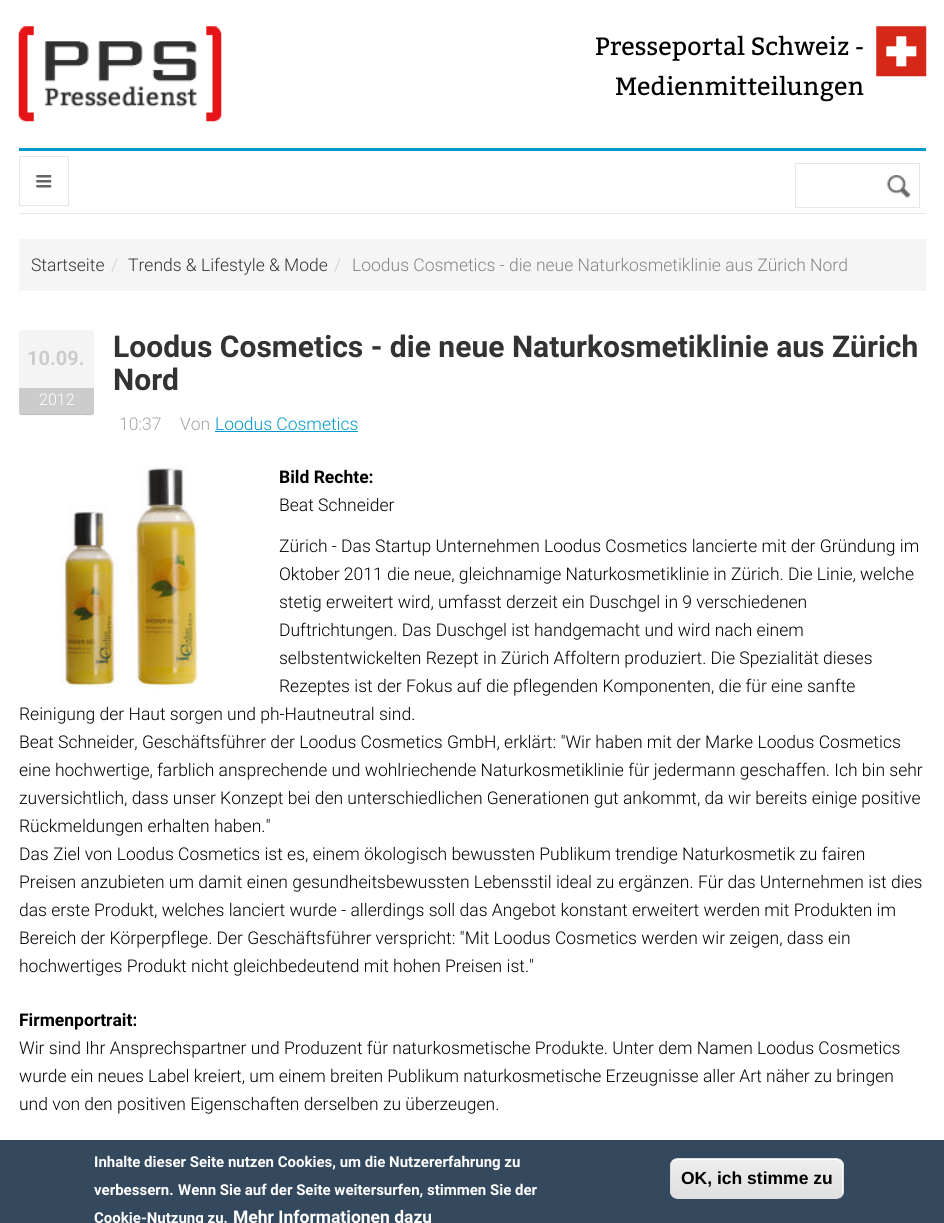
import math
import cairo

surface = cairo.ImageSurface(cairo.FORMAT_RGB24, 944, 1223)
ctx = cairo.Context(surface)
options = cairo.FontOptions()
options.set_hint_metrics(cairo.HINT_METRICS_OFF)
options.set_hint_style(cairo.HINT_STYLE_NONE)
ctx.set_font_options(options)
ctx.set_miter_limit(4)


def set_color(code):
    ctx.set_source_rgb(*(v / 255 for v in bytes.fromhex(code[-6:])))


def draw_text(x, y, s, family, size, color, bold=False, italic=False):
    ctx.select_font_face(family, cairo.FONT_SLANT_ITALIC if italic else cairo.FONT_SLANT_NORMAL, cairo.FONT_WEIGHT_BOLD if bold else cairo.FONT_WEIGHT_NORMAL)
    ctx.set_font_size(size)
    set_color(color)
    ctx.move_to(x, y)
    ctx.show_text(s)


def fill_rect(x, y, w, h, color):
    set_color(color)
    ctx.rectangle(x, y, w, h)
    ctx.fill()


def rounded_rect(x, y, w, h, r):
    ctx.new_sub_path()
    for i, (u, v) in enumerate([(x + w - r, y + h - r), (x + r, y + h - r), (x + r, y + r), (x + w - r, y + r)]):
        ctx.arc(u, v, r, i * math.pi / 2, (i + 1) * math.pi / 2)
    ctx.close_path()


def draw_image(path, x, y, w, h):
    ctx.save()
    ctx.set_source_surface(cairo.ImageSurface.create_from_png(path), x, y)
    ctx.rectangle(x, y, w, h)
    ctx.fill()
    ctx.restore()


set_color("#ffffff")
ctx.paint()
draw_image("assets/img1.png", 18, 26, 204, 96)
draw_text(595, 55, "Presseportal Schweiz -", "Bitter", 25, "#000000")
draw_image("assets/img2.png", 876, 26, 51, 51)
draw_text(615, 95, "Medienmitteilungen", "Bitter", 25, "#000000")
fill_rect(19, 148, 907, 3, "#0099cc")
fill_rect(19, 213, 907, 1, "#e6e6e6")
ctx.rectangle(19.5, 156.5, 49, 49)
ctx.set_line_width(1)
ctx.stroke()
draw_image("assets/img3.png", 36, 175, 16, 13)
ctx.rectangle(795.5, 163.5, 124, 44)
ctx.stroke()
draw_image("assets/img4.png", 887, 175, 24, 23)
fill_rect(19, 239, 907, 52, "#f5f5f5")
draw_text(31, 271, "Startseite", "Roboto Light", 17.5, "#333333")
draw_text(111, 271, "/", "Roboto Light", 17.5, "#cccccc")
draw_text(128, 271, "Trends & Lifestyle & Mode", "Roboto Light", 17.5, "#333333")
draw_text(334, 271, "/", "Roboto Light", 17.5, "#cccccc")
draw_text(352, 271, "Loodus Cosmetics - die neue Naturkosmetiklinie aus Zürich Nord", "Roboto Light", 17.5, "#848484")
set_color("#f4f4f4")
ctx.new_path()
ctx.move_to(21.5, 330)
ctx.line_to(91.5, 330)
ctx.curve_to(93, 330, 94, 331, 94, 332.5)
ctx.line_to(94, 388)
ctx.line_to(19, 388)
ctx.line_to(19, 332.5)
ctx.curve_to(19, 331, 20, 330, 21.5, 330)
ctx.close_path()
ctx.fill()
draw_text(27, 365, "10.09.", "Roboto", 20, "#cccccc", bold=True)
ctx.new_path()
ctx.move_to(19, 388)
ctx.line_to(94, 388)
ctx.line_to(94, 412.5)
ctx.curve_to(94, 414, 93, 415, 91.5, 415)
ctx.line_to(21.5, 415)
ctx.curve_to(20, 415, 19, 414, 19, 412.5)
ctx.close_path()
ctx.fill()
ctx.set_source_rgba(0, 0, 0, 0.07)
ctx.new_path()
ctx.move_to(19, 411)
ctx.curve_to(19, 418, 28, 415, 33, 415)
ctx.line_to(80, 415)
ctx.curve_to(85, 415, 94, 418, 94, 411)
ctx.curve_to(94, 413, 93, 414, 91, 414)
ctx.line_to(21, 414)
ctx.curve_to(20, 414, 19, 413, 19, 411)
ctx.close_path()
ctx.fill()
draw_text(39, 405, "2012", "Roboto Light", 16, "#ffffff")
draw_text(113, 357, "Loodus Cosmetics - die neue Naturkosmetiklinie aus Zürich", "Roboto", 30, "#333333", bold=True)
draw_text(113, 390, "Nord", "Roboto", 30, "#333333", bold=True)
draw_text(119, 430, "10:37", "Roboto Light", 17.5, "#a4a4a4")
draw_text(180, 430, "Von", "Roboto Light", 17.5, "#a4a4a4")
draw_text(215, 430, "Loodus Cosmetics", "Roboto Light", 17.5, "#0099cc")
fill_rect(215, 431, 143, 1, "#0099cc")
draw_image("assets/img5.png", 59, 464, 140, 225)
draw_text(279, 483, "Bild Rechte:", "Roboto", 17.5, "#000000", bold=True)
draw_text(279, 511, "Beat Schneider", "Roboto Light", 17.5, "#000000")
draw_text(279, 552, "Zürich - Das Startup Unternehmen Loodus Cosmetics lancierte mit der Gründung im", "Roboto Light", 17.5, "#000000")
draw_text(279, 580, "Oktober 2011 die neue, gleichnamige Naturkosmetiklinie in Zürich. Die Linie, welche", "Roboto Light", 17.5, "#000000")
draw_text(279, 608, "stetig erweitert wird, umfasst derzeit ein Duschgel in 9 verschiedenen", "Roboto Light", 17.5, "#000000")
draw_text(279, 636, "Duftrichtungen. Das Duschgel ist handgemacht und wird nach einem", "Roboto Light", 17.5, "#000000")
draw_text(279, 664, "selbstentwickelten Rezept in Zürich Affoltern produziert. Die Spezialität dieses", "Roboto Light", 17.5, "#000000")
draw_text(279, 692, "Rezeptes ist der Fokus auf die pflegenden Komponenten, die für eine sanfte", "Roboto Light", 17.5, "#000000")
draw_text(19, 720, "Reinigung der Haut sorgen und ph-Hautneutral sind.", "Roboto Light", 17.5, "#000000")
draw_text(19, 748, "Beat Schneider, Geschäftsführer der Loodus Cosmetics GmbH, erklärt: \"Wir haben mit der Marke Loodus Cosmetics", "Roboto Light", 17.5, "#000000")
draw_text(19, 776, "eine hochwertige, farblich ansprechende und wohlriechende Naturkosmetiklinie für jedermann geschaffen. Ich bin sehr", "Roboto Light", 17.5, "#000000")
draw_text(19, 804, "zuversichtlich, dass unser Konzept bei den unterschiedlichen Generationen gut ankommt, da wir bereits einige positive", "Roboto Light", 17.5, "#000000")
draw_text(19, 832, "Rückmeldungen erhalten haben.\"", "Roboto Light", 17.5, "#000000")
draw_text(19, 860, "Das Ziel von Loodus Cosmetics ist es, einem ökologisch bewussten Publikum trendige Naturkosmetik zu fairen", "Roboto Light", 17.5, "#000000")
draw_text(19, 888, "Preisen anzubieten um damit einen gesundheitsbewussten Lebensstil ideal zu ergänzen. Für das Unternehmen ist dies", "Roboto Light", 17.5, "#000000")
draw_text(19, 916, "das erste Produkt, welches lanciert wurde - allerdings soll das Angebot konstant erweitert werden mit Produkten im", "Roboto Light", 17.5, "#000000")
draw_text(19, 944, "Bereich der Körperpflege. Der Geschäftsführer verspricht: \"Mit Loodus Cosmetics werden wir zeigen, dass ein", "Roboto Light", 17.5, "#000000")
draw_text(19, 972, "hochwertiges Produkt nicht gleichbedeutend mit hohen Preisen ist.\"", "Roboto Light", 17.5, "#000000")
draw_text(19, 1026, "Firmenportrait:", "Roboto", 17.5, "#000000", bold=True)
draw_text(19, 1054, "Wir sind Ihr Ansprechspartner und Produzent für naturkosmetische Produkte. Unter dem Namen Loodus Cosmetics", "Roboto Light", 17.5, "#000000")
draw_text(19, 1082, "wurde ein neues Label kreiert, um einem breiten Publikum naturkosmetische Erzeugnisse aller Art näher zu bringen", "Roboto Light", 17.5, "#000000")
draw_text(19, 1110, "und von den positiven Eigenschaften derselben zu überzeugen.", "Roboto Light", 17.5, "#000000")
fill_rect(0, 1140, 944, 83, "#34495e")
draw_text(94, 1167, "Inhalte dieser Seite nutzen Cookies, um die Nutzererfahrung zu", "Roboto", 15, "#ffffff", bold=True)
draw_text(94, 1195, "verbessern.", "Roboto", 15, "#ffffff", bold=True)
draw_text(178, 1195, "Wenn Sie auf der Seite weitersurfen, stimmen Sie der", "Roboto", 15, "#ffffff", bold=True)
draw_text(94, 1223, "Cookie-Nutzung zu.", "Roboto", 15, "#ffffff", bold=True)
draw_text(233, 1223, "Mehr Informationen dazu", "Roboto", 17.5, "#ffffff", bold=True)
ctx.save()
rounded_rect(670, 1158, 174, 41, 8)
ctx.clip()
gradient = cairo.LinearGradient(757, 1159, 757, 1198)
gradient.add_color_stop_rgba(0.05, 0.929, 0.929, 0.929, 1)
gradient.add_color_stop_rgba(1, 0.875, 0.875, 0.875, 1)
ctx.set_source(gradient)
ctx.rectangle(670, 1159, 174, 39)
ctx.fill()
ctx.restore()
ctx.new_path()
ctx.move_to(678, 1160)
ctx.line_to(836, 1160)
ctx.curve_to(840, 1160, 842, 1163, 842, 1166)
ctx.line_to(842, 1192)
ctx.curve_to(842, 1194, 842, 1195, 841, 1197)
ctx.curve_to(842, 1196, 843, 1194, 843, 1192)
ctx.line_to(843, 1165)
ctx.curve_to(843, 1162, 840, 1159, 837, 1159)
ctx.line_to(677, 1159)
ctx.curve_to(674, 1159, 671, 1162, 671, 1165)
ctx.line_to(671, 1166)
ctx.curve_to(671, 1163, 674, 1160, 678, 1160)
ctx.close_path()
ctx.fill()
rounded_rect(670.5, 1158.5, 173, 40, 7.5)
set_color("#dcdcdc")
ctx.stroke()
draw_text(681, 1184, "OK, ich stimme zu", "Liberation Sans", 17.5, "#000000", bold=True)
surface.write_to_png("output.png")
